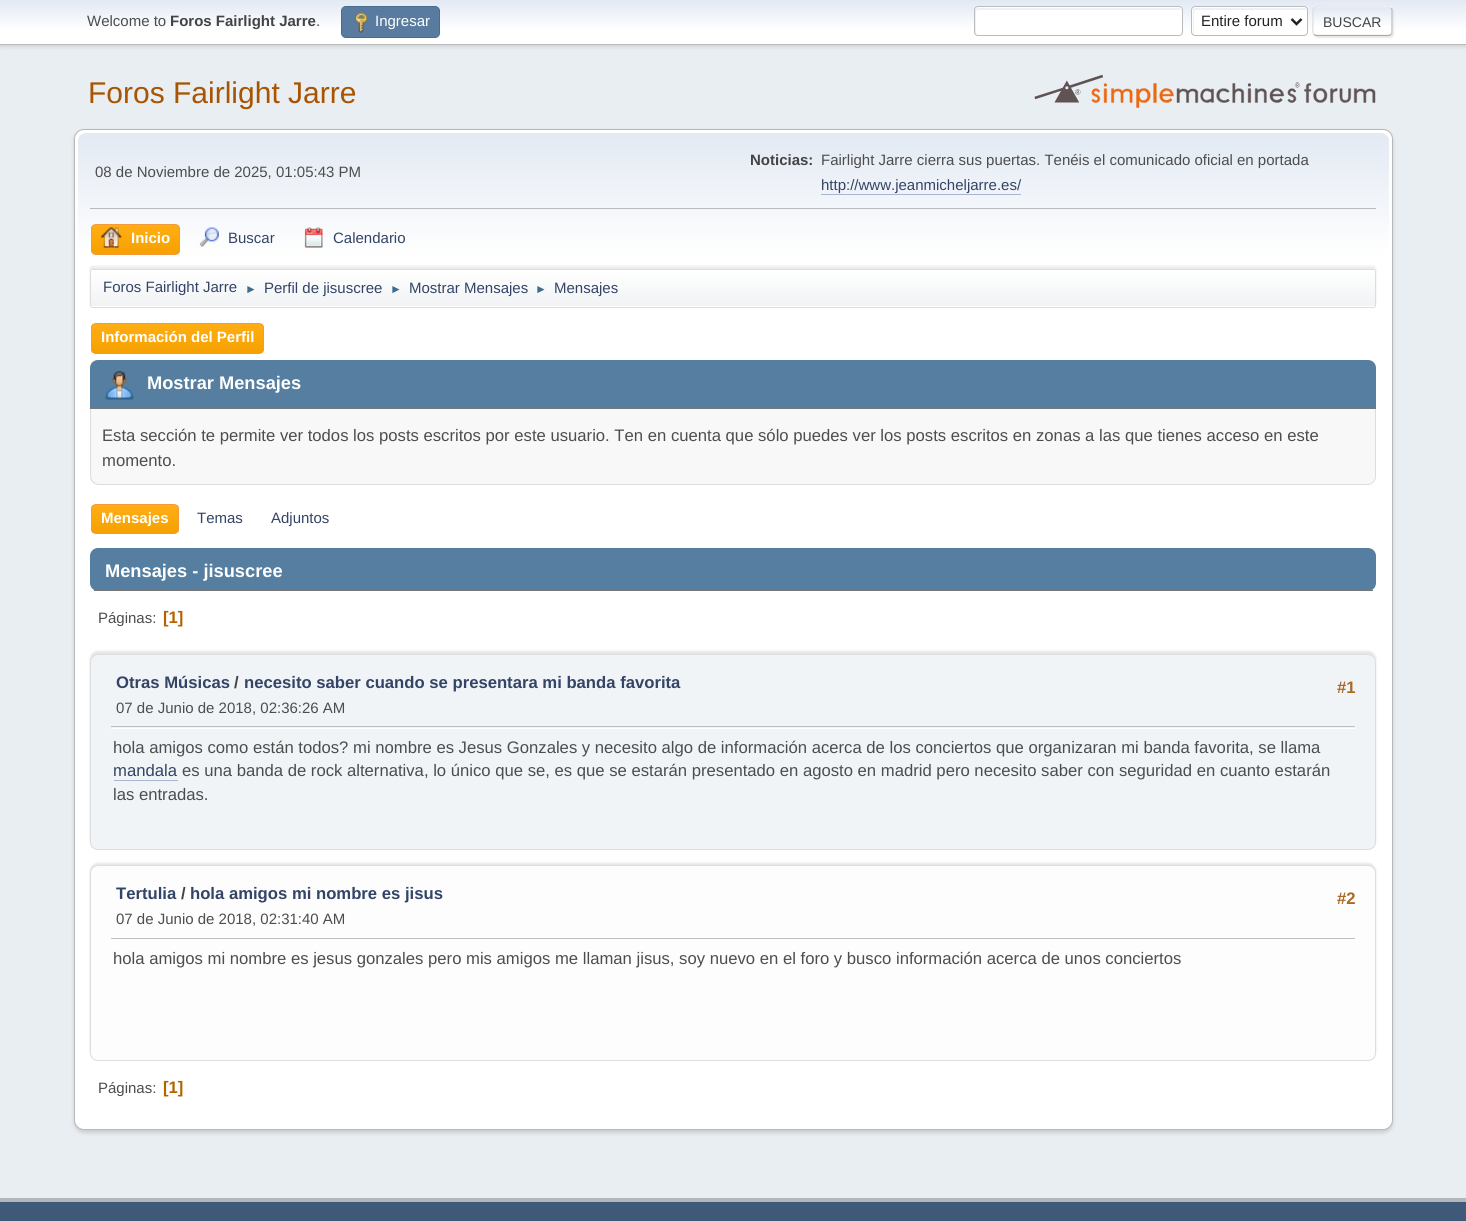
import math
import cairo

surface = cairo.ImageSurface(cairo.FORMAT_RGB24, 1466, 1221)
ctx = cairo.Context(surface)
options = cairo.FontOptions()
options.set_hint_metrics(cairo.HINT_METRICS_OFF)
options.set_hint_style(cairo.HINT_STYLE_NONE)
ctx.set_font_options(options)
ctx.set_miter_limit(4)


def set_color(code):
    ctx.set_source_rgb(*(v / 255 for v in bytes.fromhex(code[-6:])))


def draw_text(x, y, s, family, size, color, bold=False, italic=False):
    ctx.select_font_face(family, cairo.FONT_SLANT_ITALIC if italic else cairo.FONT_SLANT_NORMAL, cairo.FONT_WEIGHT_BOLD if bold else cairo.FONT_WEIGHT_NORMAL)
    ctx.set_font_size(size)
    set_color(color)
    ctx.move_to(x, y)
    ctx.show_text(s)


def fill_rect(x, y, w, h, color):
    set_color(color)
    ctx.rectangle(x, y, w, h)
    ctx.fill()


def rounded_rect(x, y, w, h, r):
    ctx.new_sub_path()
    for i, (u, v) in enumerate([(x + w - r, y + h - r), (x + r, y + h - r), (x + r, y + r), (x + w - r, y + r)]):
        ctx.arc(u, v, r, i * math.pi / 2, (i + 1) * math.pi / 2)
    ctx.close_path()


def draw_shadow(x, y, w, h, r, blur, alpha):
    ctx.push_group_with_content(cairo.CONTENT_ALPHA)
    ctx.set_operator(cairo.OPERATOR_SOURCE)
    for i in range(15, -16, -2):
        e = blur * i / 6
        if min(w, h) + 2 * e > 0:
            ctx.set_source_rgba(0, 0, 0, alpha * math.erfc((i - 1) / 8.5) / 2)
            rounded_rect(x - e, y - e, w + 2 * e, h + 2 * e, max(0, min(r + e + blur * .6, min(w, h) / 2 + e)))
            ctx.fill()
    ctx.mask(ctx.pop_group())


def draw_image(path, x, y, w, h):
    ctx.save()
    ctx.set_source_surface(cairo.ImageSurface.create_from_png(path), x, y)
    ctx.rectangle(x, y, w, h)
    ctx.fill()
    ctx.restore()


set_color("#e9eef2")
ctx.paint()
set_color("#000000")
draw_shadow(0, 1, 1466, 45, 0, 2.5, 0.16)
gradient = cairo.LinearGradient(733, 0, 733, 44)
gradient.add_color_stop_rgba(0, 0.886, 0.914, 0.953, 1)
gradient.add_color_stop_rgba(0.7, 1, 1, 1, 1)
ctx.set_source(gradient)
ctx.rectangle(0, 0, 1466, 44)
ctx.fill()
fill_rect(0, 44, 1466, 1, "#bbbbbb")
draw_text(87, 26, "Welcome to", "Liberation Sans", 15, "#4d4d4d")
draw_text(170, 26, "Foros Fairlight Jarre", "Liberation Sans", 15, "#444444", bold=True)
draw_text(316, 26, ".", "Liberation Sans", 15, "#4d4d4d")
set_color("#597b9f")
rounded_rect(341.5, 6.5, 98, 31, 4.5)
ctx.fill_preserve()
set_color("#4a6b8c")
ctx.set_line_width(1)
ctx.stroke()
draw_image("assets/img1.png", 354, 12, 14, 21)
draw_text(375, 26, "Ingresar", "Liberation Sans", 15, "#ffffff")
rounded_rect(974, 6, 209, 30, 4)
ctx.fill()
set_color("#ecf1f8")
ctx.new_path()
ctx.move_to(979, 10)
ctx.line_to(1181, 10)
ctx.curve_to(1181, 9, 1180, 8, 1178, 8)
ctx.line_to(978, 8)
ctx.curve_to(976, 8, 975, 9, 975, 10)
ctx.line_to(975, 32)
ctx.curve_to(975, 33, 975, 34, 976, 35)
ctx.line_to(976, 12)
ctx.curve_to(976, 11, 977, 10, 979, 10)
ctx.close_path()
ctx.fill()
rounded_rect(974.5, 6.5, 208, 29, 3.5)
set_color("#bbbbbb")
ctx.stroke()
set_color("#ffffff")
rounded_rect(1191, 6, 117, 30, 4)
ctx.fill()
set_color("#ecf1f8")
ctx.new_path()
ctx.move_to(1196, 10)
ctx.line_to(1306, 10)
ctx.curve_to(1306, 9, 1305, 8, 1304, 8)
ctx.line_to(1196, 8)
ctx.curve_to(1194, 8, 1193, 9, 1193, 10)
ctx.line_to(1193, 32)
ctx.curve_to(1193, 33, 1193, 34, 1194, 35)
ctx.line_to(1194, 12)
ctx.curve_to(1194, 11, 1195, 10, 1196, 10)
ctx.close_path()
ctx.fill()
rounded_rect(1191.5, 6.5, 116, 29, 3.5)
set_color("#bbbbbb")
ctx.stroke()
ctx.new_path()
ctx.move_to(1291.5, 19)
ctx.line_to(1296.5, 24)
ctx.line_to(1301.5, 19)
set_color("#222222")
ctx.set_line_width(2.5)
ctx.stroke()
draw_text(1201, 26, "Entire forum", "Liberation Sans", 15, "#222222")
set_color("#dddddd")
draw_shadow(1314, 8, 80, 30, 4, 0.5, 0.57)
ctx.save()
rounded_rect(1313, 6, 80, 30, 4)
ctx.clip()
gradient = cairo.LinearGradient(1353, -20, 1353, 7.5)
gradient.add_color_stop_rgba(0, 0.886, 0.914, 0.953, 1)
gradient.add_color_stop_rgba(0.7, 1, 1, 1, 1)
ctx.set_source(gradient)
ctx.rectangle(1313, 6, 80, 2)
ctx.fill()
gradient = cairo.LinearGradient(1353, 7.5, 1353, 35)
gradient.add_color_stop_rgba(0, 0.886, 0.914, 0.953, 1)
gradient.add_color_stop_rgba(0.7, 1, 1, 1, 1)
ctx.set_source(gradient)
ctx.rectangle(1313, 8, 80, 27)
ctx.fill()
gradient = cairo.LinearGradient(1353, 35, 1353, 63)
gradient.add_color_stop_rgba(0, 0.886, 0.914, 0.953, 1)
gradient.add_color_stop_rgba(0.7, 1, 1, 1, 1)
ctx.set_source(gradient)
ctx.rectangle(1313, 35, 80, 1)
ctx.fill()
ctx.restore()
ctx.new_path()
ctx.move_to(1391, 8)
ctx.curve_to(1391.5, 8.5, 1392, 9, 1392, 10)
ctx.line_to(1392, 32.5)
ctx.curve_to(1392, 33.5, 1391.5, 34, 1391, 34.5)
set_color("#bbbbbb")
ctx.set_line_width(1.2)
ctx.stroke()
ctx.new_path()
ctx.move_to(1391, 34.5)
ctx.line_to(1389, 35.5)
ctx.line_to(1316, 35.5)
ctx.line_to(1314, 34.5)
set_color("#aaaaaa")
ctx.stroke()
ctx.new_path()
ctx.move_to(1314, 34.5)
ctx.curve_to(1312, 32.5, 1313, 24, 1313, 21)
ctx.curve_to(1313, 4.5, 1310.5, 7, 1328.5, 7)
ctx.line_to(1389, 7)
ctx.line_to(1391, 8)
set_color("#dddddd")
ctx.stroke()
draw_text(1323, 27, "BUSCAR", "Liberation Sans", 14, "#444444")
draw_text(88, 103, "Foros Fairlight Jarre", "Liberation Sans", 30, "#a85400")
draw_image("assets/img2.png", 1034, 74, 342, 34)
set_color("#000000")
draw_shadow(74, 131, 1319, 1002, 10, 2, 0.14)
set_color("#ffffff")
rounded_rect(74.5, 129.5, 1318, 1000, 9.5)
ctx.fill_preserve()
set_color("#b8b8b8")
ctx.set_line_width(1)
ctx.stroke()
gradient = cairo.LinearGradient(733, 132, 733, 310)
gradient.add_color_stop_rgba(0, 0.886, 0.914, 0.953, 1)
gradient.add_color_stop_rgba(0.7, 1, 1, 1, 1)
ctx.set_source(gradient)
ctx.new_path()
ctx.move_to(86, 133)
ctx.line_to(1381, 133)
ctx.curve_to(1385.5, 133, 1389, 136.5, 1389, 141)
ctx.line_to(1389, 310)
ctx.line_to(78, 310)
ctx.line_to(78, 141)
ctx.curve_to(78, 136.5, 81.5, 133, 86, 133)
ctx.close_path()
ctx.fill()
fill_rect(90, 208, 1286, 1, "#bbbbbb")
draw_text(95, 177, "08 de Noviembre de 2025, 01:05:43 PM", "Liberation Sans", 15, "#4d4d4d")
draw_text(750, 165, "Noticias:", "Liberation Sans", 15, "#444444", bold=True)
draw_text(821, 165, "Fairlight Jarre cierra sus puertas. Tenéis el comunicado oficial en portada", "Liberation Sans", 15, "#4d4d4d")
draw_text(821, 190, "http://www.jeanmicheljarre.es/", "Liberation Sans", 15, "#334466")
fill_rect(821, 194, 200, 1, "#a8b6cf")
ctx.save()
rounded_rect(91, 224, 89, 31, 5)
ctx.clip()
gradient = cairo.LinearGradient(136, 225, 136, 254)
gradient.add_color_stop_rgba(0, 1, 0.682, 0.078, 1)
gradient.add_color_stop_rgba(1, 0.961, 0.631, 0, 1)
ctx.set_source(gradient)
ctx.rectangle(91, 225, 89, 29)
ctx.fill()
ctx.restore()
rounded_rect(91.5, 224.5, 88, 30, 4.5)
set_color("#f49a3a")
ctx.stroke()
draw_image("assets/img3.png", 101, 227, 21, 21)
draw_text(131, 243, "Inicio", "Liberation Sans", 15, "#ffffff", bold=True)
draw_image("assets/img4.png", 199, 227, 20, 20)
draw_text(228, 243, "Buscar", "Liberation Sans", 15, "#334466")
draw_image("assets/img5.png", 304, 227, 19, 21)
draw_text(333, 243, "Calendario", "Liberation Sans", 15, "#334466")
set_color("#000000")
draw_shadow(90, 266, 1286, 39, 2.5, 1, 0.08)
set_color("#ffffff")
rounded_rect(90, 269, 1286, 39, 2.5)
ctx.fill()
gradient = cairo.LinearGradient(733, 270, 733, 306)
gradient.add_color_stop_rgba(0, 1, 1, 1, 1)
gradient.add_color_stop_rgba(0.95, 0.945, 0.953, 0.961, 1)
ctx.set_source(gradient)
ctx.rectangle(90, 270, 1286, 36)
ctx.fill()
rounded_rect(90.5, 269.5, 1285, 38, 2)
set_color("#dddddd")
ctx.stroke()
draw_text(103, 292, "Foros Fairlight Jarre", "Liberation Sans", 15, "#334466")
draw_text(245, 293, "►", "Liberation Sans", 12, "#3f6b8c")
draw_text(264, 293, "Perfil de jisuscree", "Liberation Sans", 15, "#334466")
draw_text(390, 293, "►", "Liberation Sans", 12, "#3f6b8c")
draw_text(409, 293, "Mostrar Mensajes", "Liberation Sans", 15, "#334466")
draw_text(535, 293, "►", "Liberation Sans", 12, "#3f6b8c")
draw_text(554, 293, "Mensajes", "Liberation Sans", 15, "#334466")
ctx.save()
rounded_rect(91, 323, 173, 31, 5)
ctx.clip()
gradient = cairo.LinearGradient(178, 324, 178, 353)
gradient.add_color_stop_rgba(0, 1, 0.682, 0.078, 1)
gradient.add_color_stop_rgba(1, 0.961, 0.631, 0, 1)
ctx.set_source(gradient)
ctx.rectangle(91, 324, 173, 29)
ctx.fill()
ctx.restore()
rounded_rect(91.5, 323.5, 172, 30, 4.5)
set_color("#f49a3a")
ctx.stroke()
draw_text(101, 342, "Información del Perfil", "Liberation Sans", 15, "#ffffff", bold=True)
set_color("#557ea0")
ctx.new_path()
ctx.move_to(98, 360)
ctx.line_to(1368, 360)
ctx.curve_to(1372.5, 360, 1376, 363.5, 1376, 368)
ctx.line_to(1376, 409)
ctx.line_to(90, 409)
ctx.line_to(90, 368)
ctx.curve_to(90, 363.5, 93.5, 360, 98, 360)
ctx.close_path()
ctx.fill()
fill_rect(90, 408, 1286, 1, "#777777")
draw_image("assets/img6.png", 105, 371, 29, 29)
draw_text(147, 389, "Mostrar Mensajes", "Liberation Sans", 18.25, "#ffffff", bold=True)
set_color("#f8f8f8")
ctx.new_path()
ctx.move_to(90, 409)
ctx.line_to(1376, 409)
ctx.line_to(1376, 476)
ctx.curve_to(1376, 481, 1372, 485, 1367, 485)
ctx.line_to(99, 485)
ctx.curve_to(94, 485, 90, 481, 90, 476)
ctx.close_path()
ctx.fill()
set_color("#dddddd")
ctx.set_fill_rule(cairo.FILL_RULE_EVEN_ODD)
ctx.new_path()
ctx.move_to(90, 409)
ctx.line_to(1376, 409)
ctx.line_to(1376, 476)
ctx.curve_to(1376, 481, 1372, 485, 1368, 485)
ctx.line_to(99, 485)
ctx.curve_to(94, 485, 90, 481, 90, 476)
ctx.close_path()
ctx.move_to(91, 409)
ctx.line_to(1375, 409)
ctx.line_to(1375, 476)
ctx.curve_to(1375, 480, 1372, 484, 1368, 484)
ctx.line_to(99, 484)
ctx.curve_to(95, 484, 91, 480, 91, 476)
ctx.close_path()
ctx.fill()
draw_text(102, 441, "Esta sección te permite ver todos los posts escritos por este usuario. Ten en cuenta que sólo puedes ver los posts escritos en zonas a las que tienes acceso en este", "Liberation Sans", 16.67, "#4d4d4d")
draw_text(102, 466, "momento.", "Liberation Sans", 16.67, "#4d4d4d")
ctx.save()
ctx.set_fill_rule(cairo.FILL_RULE_WINDING)
rounded_rect(91, 504, 88, 30, 5)
ctx.clip()
gradient = cairo.LinearGradient(135, 505, 135, 533)
gradient.add_color_stop_rgba(0, 1, 0.682, 0.078, 1)
gradient.add_color_stop_rgba(1, 0.961, 0.631, 0, 1)
ctx.set_source(gradient)
ctx.rectangle(91, 505, 88, 28)
ctx.fill()
ctx.restore()
rounded_rect(91.5, 504.5, 87, 29, 4.5)
set_color("#f49a3a")
ctx.stroke()
draw_text(101, 523, "Mensajes", "Liberation Sans", 15, "#ffffff", bold=True)
draw_text(197, 523, "Temas", "Liberation Sans", 15, "#334466")
draw_text(271, 523, "Adjuntos", "Liberation Sans", 15, "#334466")
set_color("#557ea0")
rounded_rect(90, 548, 1286, 43, 8)
ctx.fill()
fill_rect(94, 590, 1279, 1, "#777777")
draw_text(105, 577, "Mensajes - jisuscree", "Liberation Sans", 18.25, "#ffffff", bold=True)
draw_text(98, 623, "Páginas:", "Liberation Sans", 15, "#4d4d4d")
draw_text(163, 623, "[1]", "Liberation Sans", 16.67, "#b46100", bold=True)
set_color("#000000")
draw_shadow(90, 651, 1286, 197, 8, 1, 0.1)
set_color("#f0f4f7")
rounded_rect(90.5, 654.5, 1285, 195, 7.5)
ctx.fill_preserve()
set_color("#dddddd")
ctx.stroke()
draw_text(116, 688, "Otras Músicas", "Liberation Sans", 16.67, "#334466", bold=True)
draw_text(234, 688, "/", "Liberation Sans", 16.67, "#444444", bold=True)
draw_text(244, 688, "necesito saber cuando se presentara mi banda favorita", "Liberation Sans", 16.67, "#334466", bold=True)
draw_text(116, 713, "07 de Junio de 2018, 02:36:26 AM", "Liberation Sans", 15, "#4d4d4d")
draw_text(1337, 693, "#1", "Liberation Sans", 16.67, "#ad6825", bold=True)
fill_rect(111, 728, 1244, 1, "#ffffff")
fill_rect(111, 726, 1244, 1, "#bfbfbf")
draw_text(113, 753, "hola amigos como están todos? mi nombre es Jesus Gonzales y necesito algo de información acerca de los conciertos que organizaran mi banda favorita, se llama", "Liberation Sans", 16.67, "#4d4d4d")
draw_text(113, 776, "mandala", "Liberation Sans", 16.67, "#334466")
fill_rect(114, 780, 64, 1, "#a8b6cf")
draw_text(182, 776, "es una banda de rock alternativa, lo único que se, es que se estarán presentado en agosto en madrid pero necesito saber con seguridad en cuanto estarán", "Liberation Sans", 16.67, "#4d4d4d")
draw_text(113, 800, "las entradas.", "Liberation Sans", 16.67, "#4d4d4d")
set_color("#000000")
draw_shadow(90, 863, 1286, 196, 8, 1, 0.1)
set_color("#fdfdfd")
rounded_rect(90.5, 865.5, 1285, 195, 7.5)
ctx.fill_preserve()
set_color("#dddddd")
ctx.stroke()
draw_text(116, 899, "Tertulia", "Liberation Sans", 16.67, "#334466", bold=True)
draw_text(181, 899, "/", "Liberation Sans", 16.67, "#444444", bold=True)
draw_text(190, 899, "hola amigos mi nombre es jisus", "Liberation Sans", 16.67, "#334466", bold=True)
draw_text(116, 924, "07 de Junio de 2018, 02:31:40 AM", "Liberation Sans", 15, "#4d4d4d")
draw_text(1337, 904, "#2", "Liberation Sans", 16.67, "#ad6825", bold=True)
fill_rect(111, 938, 1244, 1, "#bfbfbf")
draw_text(113, 964, "hola amigos mi nombre es jesus gonzales pero mis amigos me llaman jisus, soy nuevo en el foro y busco información acerca de unos conciertos", "Liberation Sans", 16.67, "#4d4d4d")
draw_text(98, 1093, "Páginas:", "Liberation Sans", 15, "#4d4d4d")
draw_text(163, 1093, "[1]", "Liberation Sans", 16.67, "#b46100", bold=True)
fill_rect(0, 1202, 1466, 19, "#3e5a78")
fill_rect(0, 1198, 1466, 4, "#b2b6bd")
surface.write_to_png("output.png")
